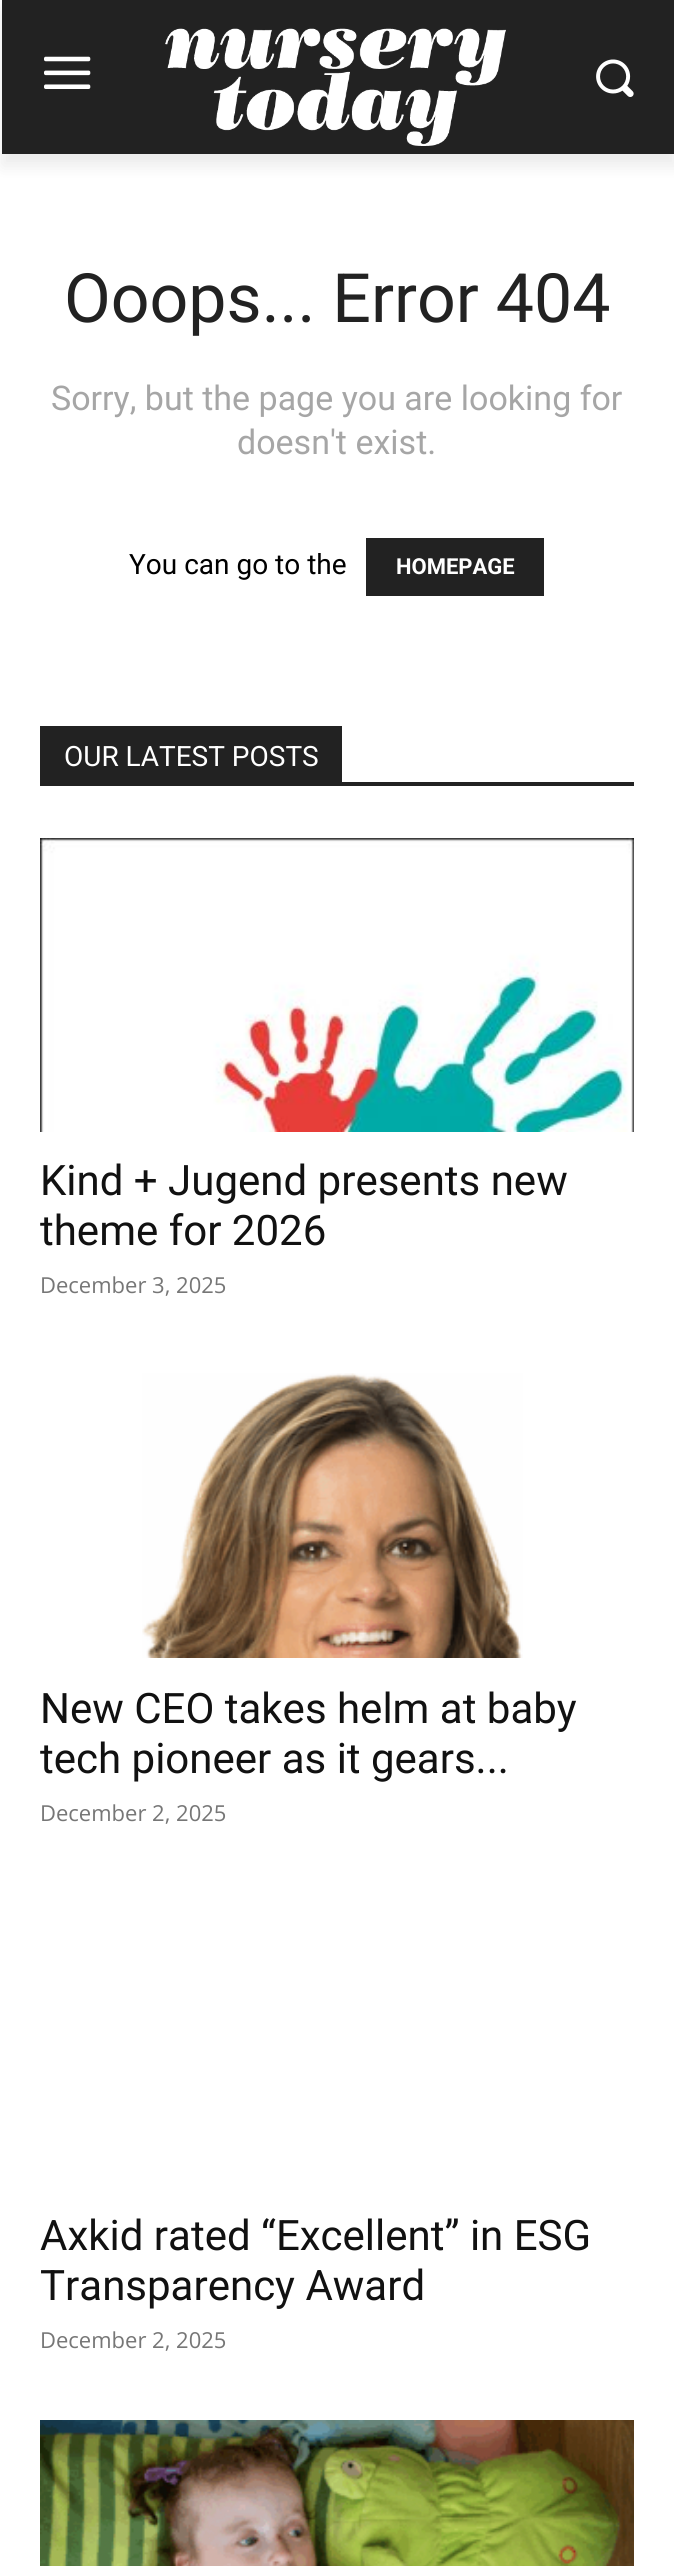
import math
import cairo

surface = cairo.ImageSurface(cairo.FORMAT_RGB24, 674, 2566)
ctx = cairo.Context(surface)
options = cairo.FontOptions()
options.set_hint_metrics(cairo.HINT_METRICS_OFF)
options.set_hint_style(cairo.HINT_STYLE_NONE)
ctx.set_font_options(options)
ctx.set_miter_limit(4)


def set_color(code):
    ctx.set_source_rgb(*(v / 255 for v in bytes.fromhex(code[-6:])))


def draw_text(x, y, s, family, size, color, bold=False, italic=False):
    ctx.select_font_face(family, cairo.FONT_SLANT_ITALIC if italic else cairo.FONT_SLANT_NORMAL, cairo.FONT_WEIGHT_BOLD if bold else cairo.FONT_WEIGHT_NORMAL)
    ctx.set_font_size(size)
    set_color(color)
    ctx.move_to(x, y)
    ctx.show_text(s)


def fill_rect(x, y, w, h, color):
    set_color(color)
    ctx.rectangle(x, y, w, h)
    ctx.fill()


def rounded_rect(x, y, w, h, r):
    ctx.new_sub_path()
    for i, (u, v) in enumerate([(x + w - r, y + h - r), (x + r, y + h - r), (x + r, y + r), (x + w - r, y + r)]):
        ctx.arc(u, v, r, i * math.pi / 2, (i + 1) * math.pi / 2)
    ctx.close_path()


def draw_shadow(x, y, w, h, r, blur, alpha):
    ctx.push_group_with_content(cairo.CONTENT_ALPHA)
    ctx.set_operator(cairo.OPERATOR_SOURCE)
    for i in range(15, -16, -2):
        e = blur * i / 6
        if min(w, h) + 2 * e > 0:
            ctx.set_source_rgba(0, 0, 0, alpha * math.erfc((i - 1) / 8.5) / 2)
            rounded_rect(x - e, y - e, w + 2 * e, h + 2 * e, max(0, min(r + e + blur * .6, min(w, h) / 2 + e)))
            ctx.fill()
    ctx.mask(ctx.pop_group())


def draw_image(path, x, y, w, h):
    ctx.save()
    ctx.set_source_surface(cairo.ImageSurface.create_from_png(path), x, y)
    ctx.rectangle(x, y, w, h)
    ctx.fill()
    ctx.restore()


set_color("#ffffff")
ctx.paint()
fill_rect(2, 0, 672, 154, "#222222")
draw_image("assets/img1.png", 44, 56, 47, 33)
draw_image("assets/img2.png", 165, 28, 341, 118)
draw_image("assets/img3.png", 596, 59, 38, 38)
ctx.save()
ctx.set_fill_rule(cairo.FILL_RULE_EVEN_ODD)
ctx.new_path()
ctx.move_to(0, 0)
ctx.line_to(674, 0)
ctx.line_to(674, 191)
ctx.line_to(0, 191)
ctx.close_path()
ctx.move_to(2, 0)
ctx.line_to(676, 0)
ctx.line_to(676, 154)
ctx.line_to(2, 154)
ctx.close_path()
ctx.clip()
set_color("#000000")
draw_shadow(2, 12, 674, 154, 0, 8, 0.08)
ctx.restore()
draw_text(64, 322, "Ooops... Error 404", "Roboto", 68, "#222222")
draw_text(51, 410, "Sorry, but the page you are looking for", "Roboto", 34, "#a6a6a6")
draw_text(237, 454, "doesn't exist.", "Roboto", 34, "#a6a6a6")
draw_text(129, 574, "You can go to the", "Roboto", 28, "#000000")
fill_rect(366, 538, 178, 58, "#222222")
draw_text(396, 574, "HOMEPAGE", "Roboto", 22, "#ffffff", bold=True)
fill_rect(40, 782, 594, 4, "#222222")
fill_rect(40, 726, 302, 56, "#222222")
draw_text(64, 766, "OUR LATEST POSTS", "Roboto", 28, "#ffffff")
draw_image("assets/img4.png", 40, 838, 594, 294)
draw_text(40, 1195, "Kind + Jugend presents new", "Roboto", 42, "#111111")
draw_text(40, 1245, "theme for 2026", "Roboto", 42, "#111111")
draw_text(40, 1293, "December 3, 2025", "Open Sans", 22, "#767676")
draw_image("assets/img5.png", 142, 1373, 381, 285)
draw_text(40, 1723, "New CEO takes helm at baby", "Roboto", 42, "#111111")
draw_text(40, 1773, "tech pioneer as it gears...", "Roboto", 42, "#111111")
draw_text(40, 1821, "December 2, 2025", "Open Sans", 22, "#767676")
draw_text(40, 2250, "Axkid rated “Excellent” in ESG", "Roboto", 42, "#111111")
draw_text(40, 2300, "Transparency Award", "Roboto", 42, "#111111")
draw_text(40, 2348, "December 2, 2025", "Open Sans", 22, "#767676")
draw_image("assets/img6.png", 40, 2420, 594, 146)
surface.write_to_png("output.png")
